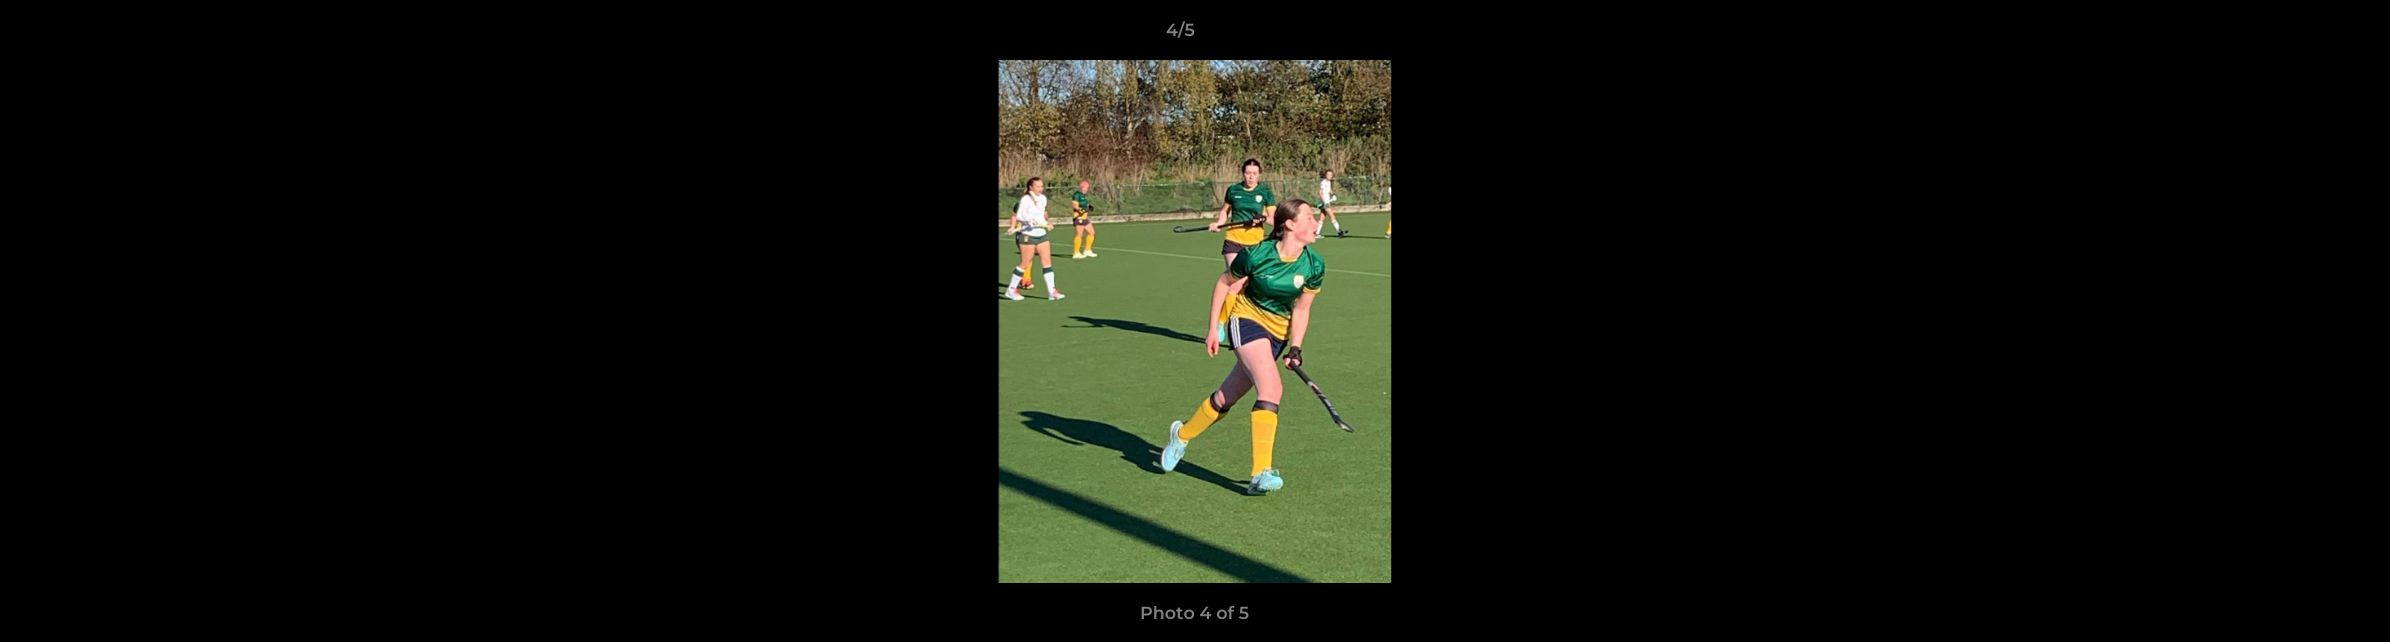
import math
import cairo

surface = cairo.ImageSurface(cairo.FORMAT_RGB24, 2390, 642)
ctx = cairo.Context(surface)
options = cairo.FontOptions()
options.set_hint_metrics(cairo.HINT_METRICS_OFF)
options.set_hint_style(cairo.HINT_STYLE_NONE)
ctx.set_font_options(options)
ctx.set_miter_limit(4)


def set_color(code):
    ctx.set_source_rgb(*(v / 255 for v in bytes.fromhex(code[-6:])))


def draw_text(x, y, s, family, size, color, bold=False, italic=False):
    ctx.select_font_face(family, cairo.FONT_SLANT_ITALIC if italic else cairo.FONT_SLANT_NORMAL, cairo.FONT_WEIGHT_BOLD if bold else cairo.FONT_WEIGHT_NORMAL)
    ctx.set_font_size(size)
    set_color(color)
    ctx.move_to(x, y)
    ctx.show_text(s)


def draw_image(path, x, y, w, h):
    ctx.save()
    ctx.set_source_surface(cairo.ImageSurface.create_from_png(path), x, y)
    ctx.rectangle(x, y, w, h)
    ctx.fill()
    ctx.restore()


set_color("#000000")
ctx.paint()
draw_text(1166, 36, "4/5", "Montserrat SemiBold", 17.5, "#808080")
draw_image("assets/img1.png", 998, 60, 394, 523)
draw_text(1140, 619, "Photo 4 of 5", "Montserrat SemiBold", 17.5, "#808080")
surface.write_to_png("output.png")
